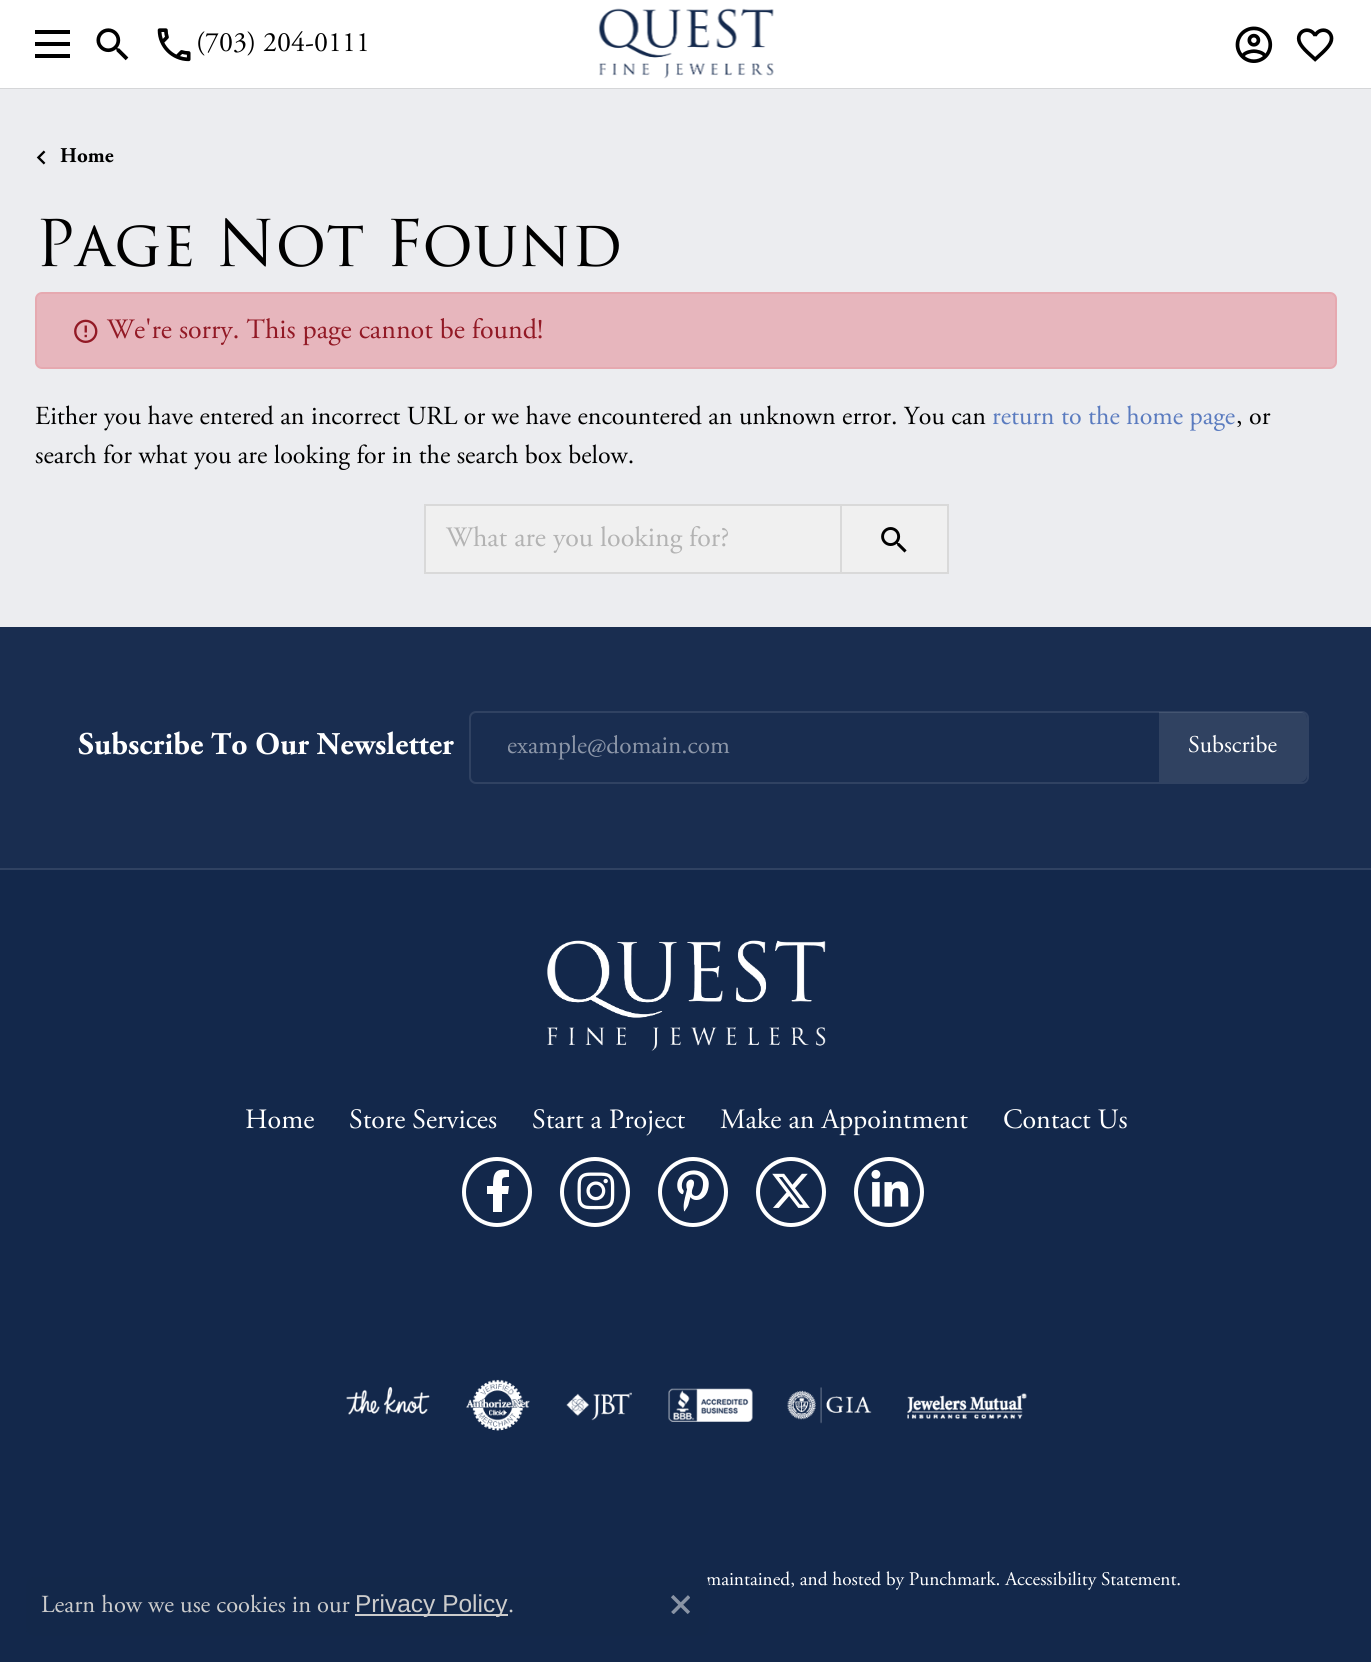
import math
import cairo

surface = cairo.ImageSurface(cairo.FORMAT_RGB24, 1371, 1662)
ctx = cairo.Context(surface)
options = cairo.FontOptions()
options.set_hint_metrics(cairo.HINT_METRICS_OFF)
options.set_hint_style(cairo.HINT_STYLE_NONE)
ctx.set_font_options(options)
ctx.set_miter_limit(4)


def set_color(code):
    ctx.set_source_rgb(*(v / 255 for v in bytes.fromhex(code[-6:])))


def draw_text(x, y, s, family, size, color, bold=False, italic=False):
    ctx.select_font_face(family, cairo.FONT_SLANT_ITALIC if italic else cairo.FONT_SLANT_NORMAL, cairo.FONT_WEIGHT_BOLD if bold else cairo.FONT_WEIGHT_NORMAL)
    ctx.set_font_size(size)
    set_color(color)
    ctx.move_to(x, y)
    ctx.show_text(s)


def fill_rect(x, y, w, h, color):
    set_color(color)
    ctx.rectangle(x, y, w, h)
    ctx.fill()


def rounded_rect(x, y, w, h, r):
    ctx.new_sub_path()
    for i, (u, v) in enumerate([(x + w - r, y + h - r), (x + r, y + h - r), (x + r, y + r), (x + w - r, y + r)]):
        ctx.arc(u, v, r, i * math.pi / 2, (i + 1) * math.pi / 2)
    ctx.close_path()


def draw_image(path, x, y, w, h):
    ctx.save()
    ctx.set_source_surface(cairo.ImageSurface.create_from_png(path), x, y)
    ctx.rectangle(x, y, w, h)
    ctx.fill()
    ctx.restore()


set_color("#13284b")
ctx.paint()
fill_rect(0, 88, 1371, 539, "#ecedf0")
ctx.rectangle(-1, -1, 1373, 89)
ctx.set_source_rgba(0, 0, 0, 0.1)
ctx.stroke()
fill_rect(0, 0, 1371, 88, "#ffffff")
fill_rect(35, 30, 35, 4, "#000000")
fill_rect(35, 42, 35, 4, "#000000")
fill_rect(35, 54, 35, 4, "#000000")
draw_image("assets/img1.png", 96, 28, 33, 33)
draw_image("assets/img2.png", 157, 28, 34, 34)
draw_text(196, 51, "(703) 204-0111", "Adobe Garamond", 28, "#000000")
draw_image("assets/img3.png", 598, 8, 176, 71)
draw_image("assets/img4.png", 1235, 26, 38, 37)
draw_image("assets/img5.png", 1296, 28, 38, 34)
draw_image("assets/img6.png", 36, 150, 10, 15)
draw_text(60, 162, "Home", "Adobe Garamond", 21, "#000000", bold=True)
draw_text(35, 266, "Page Not Found", "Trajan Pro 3", 62.75, "#000000")
set_color("#e7b6bd")
rounded_rect(35, 292, 1302, 77, 7)
ctx.fill()
rounded_rect(36, 293, 1300, 75, 6)
ctx.set_source_rgba(0.863, 0.208, 0.271, 0.1)
ctx.stroke()
draw_image("assets/img7.png", 74, 319, 24, 24)
draw_text(107, 338, "We're sorry. This page cannot be found!", "Adobe Garamond", 28, "#921925")
draw_text(35, 424, "Either you have entered an incorrect URL or we have encountered an unknown error. You can", "Adobe Garamond", 26, "#000000")
draw_text(992, 424, "return to the home page", "Adobe Garamond", 26, "#5a7bbf")
draw_text(1236, 424, ", or", "Adobe Garamond", 26, "#000000")
draw_text(35, 463, "search for what you are looking for in the search box below.", "Adobe Garamond", 26, "#000000")
set_color("#f0f0f0")
ctx.rectangle(425, 505, 416, 68)
ctx.fill_preserve()
set_color("#d9d9d9")
ctx.stroke()
draw_text(446, 546, "What are you looking for?", "Adobe Garamond", 28, "#b3b3b3")
set_color("#f0f0f0")
ctx.rectangle(841, 505, 107, 68)
ctx.fill_preserve()
set_color("#d9d9d9")
ctx.stroke()
draw_image("assets/img8.png", 881, 527, 26, 26)
fill_rect(0, 627, 1371, 241, "#192d50")
fill_rect(0, 868, 1371, 2, "#304262")
draw_text(78, 754, "Subscribe To Our Newsletter", "Adobe Garamond", 31.6, "#ffffff", bold=True)
rounded_rect(470, 712, 838, 71, 6)
set_color("#304262")
ctx.stroke()
ctx.save()
ctx.rectangle(508, 730, 651, 31)
ctx.clip()
draw_text(507, 753, "example@domain.com", "Adobe Garamond", 25.25, "#8c96a8")
ctx.restore()
ctx.set_source_rgba(1, 1, 1, 0.1)
ctx.new_path()
ctx.move_to(1159, 712)
ctx.line_to(1300, 712)
ctx.curve_to(1304, 712, 1307, 715, 1307, 719)
ctx.line_to(1307, 775)
ctx.curve_to(1307, 779, 1304, 782, 1300, 782)
ctx.line_to(1159, 782)
ctx.close_path()
ctx.fill()
draw_text(1188, 752, "Subscribe", "Adobe Garamond", 24, "#ffffff")
draw_image("assets/img9.png", 547, 940, 279, 111)
draw_text(245, 1128, "Home", "Adobe Garamond", 28, "#ffffff")
draw_text(349, 1128, "Store Services", "Adobe Garamond", 28, "#ffffff")
draw_text(532, 1128, "Start a Project", "Adobe Garamond", 28, "#ffffff")
draw_text(720, 1128, "Make an Appointment", "Adobe Garamond", 28, "#ffffff")
draw_text(1003, 1128, "Contact Us", "Adobe Garamond", 28, "#ffffff")
ctx.new_path()
ctx.arc(497, 1192, 33, 0, 2 * math.pi)
ctx.set_line_width(4)
ctx.stroke()
ctx.new_path()
ctx.move_to(508, 1194)
ctx.line_to(509, 1186)
ctx.line_to(502, 1186)
ctx.curve_to(502, 1178, 501, 1177, 509, 1177)
ctx.line_to(509, 1170)
ctx.curve_to(495, 1168, 493, 1173, 493, 1186)
ctx.line_to(487, 1186)
ctx.line_to(487, 1194)
ctx.line_to(493, 1194)
ctx.line_to(493, 1212)
ctx.line_to(502, 1212)
ctx.line_to(502, 1194)
ctx.close_path()
ctx.fill()
ctx.arc(595, 1192, 33, 0, 2 * math.pi)
ctx.stroke()
draw_image("assets/img10.png", 577, 1172, 38, 38)
ctx.arc(693, 1192, 33, 0, 2 * math.pi)
ctx.stroke()
draw_image("assets/img11.png", 677, 1170, 32, 42)
ctx.arc(791, 1192, 33, 0, 2 * math.pi)
ctx.stroke()
draw_image("assets/img12.png", 772, 1173, 38, 35)
ctx.arc(889, 1192, 33, 0, 2 * math.pi)
ctx.stroke()
draw_image("assets/img13.png", 871, 1169, 38, 38)
draw_image("assets/img14.png", 346, 1387, 84, 28)
draw_image("assets/img15.png", 466, 1379, 64, 52)
draw_image("assets/img16.png", 566, 1392, 66, 29)
draw_image("assets/img17.png", 668, 1388, 85, 34)
draw_image("assets/img18.png", 787, 1387, 85, 37)
draw_image("assets/img19.png", 907, 1393, 120, 26)
draw_text(706, 1585, "maintained, and hosted by Punchmark. Accessibility Statement.", "Adobe Garamond", 19.25, "#ffffff")
ctx.set_source_rgba(0.075, 0.157, 0.294, 0.9)
rounded_rect(26, 1577, 683, 59, 7)
ctx.fill()
draw_text(41, 1612, "Learn how we use cookies in our", "Adobe Garamond", 24.5, "#cccccc")
fill_rect(355, 1614, 153, 2, "#cccccc")
draw_text(355, 1612, "Privacy Policy", "Liberation Sans", 24.5, "#cccccc")
draw_text(508, 1612, ".", "Adobe Garamond", 24.5, "#cccccc")
draw_image("assets/img20.png", 671, 1595, 19, 19)
surface.write_to_png("output.png")
